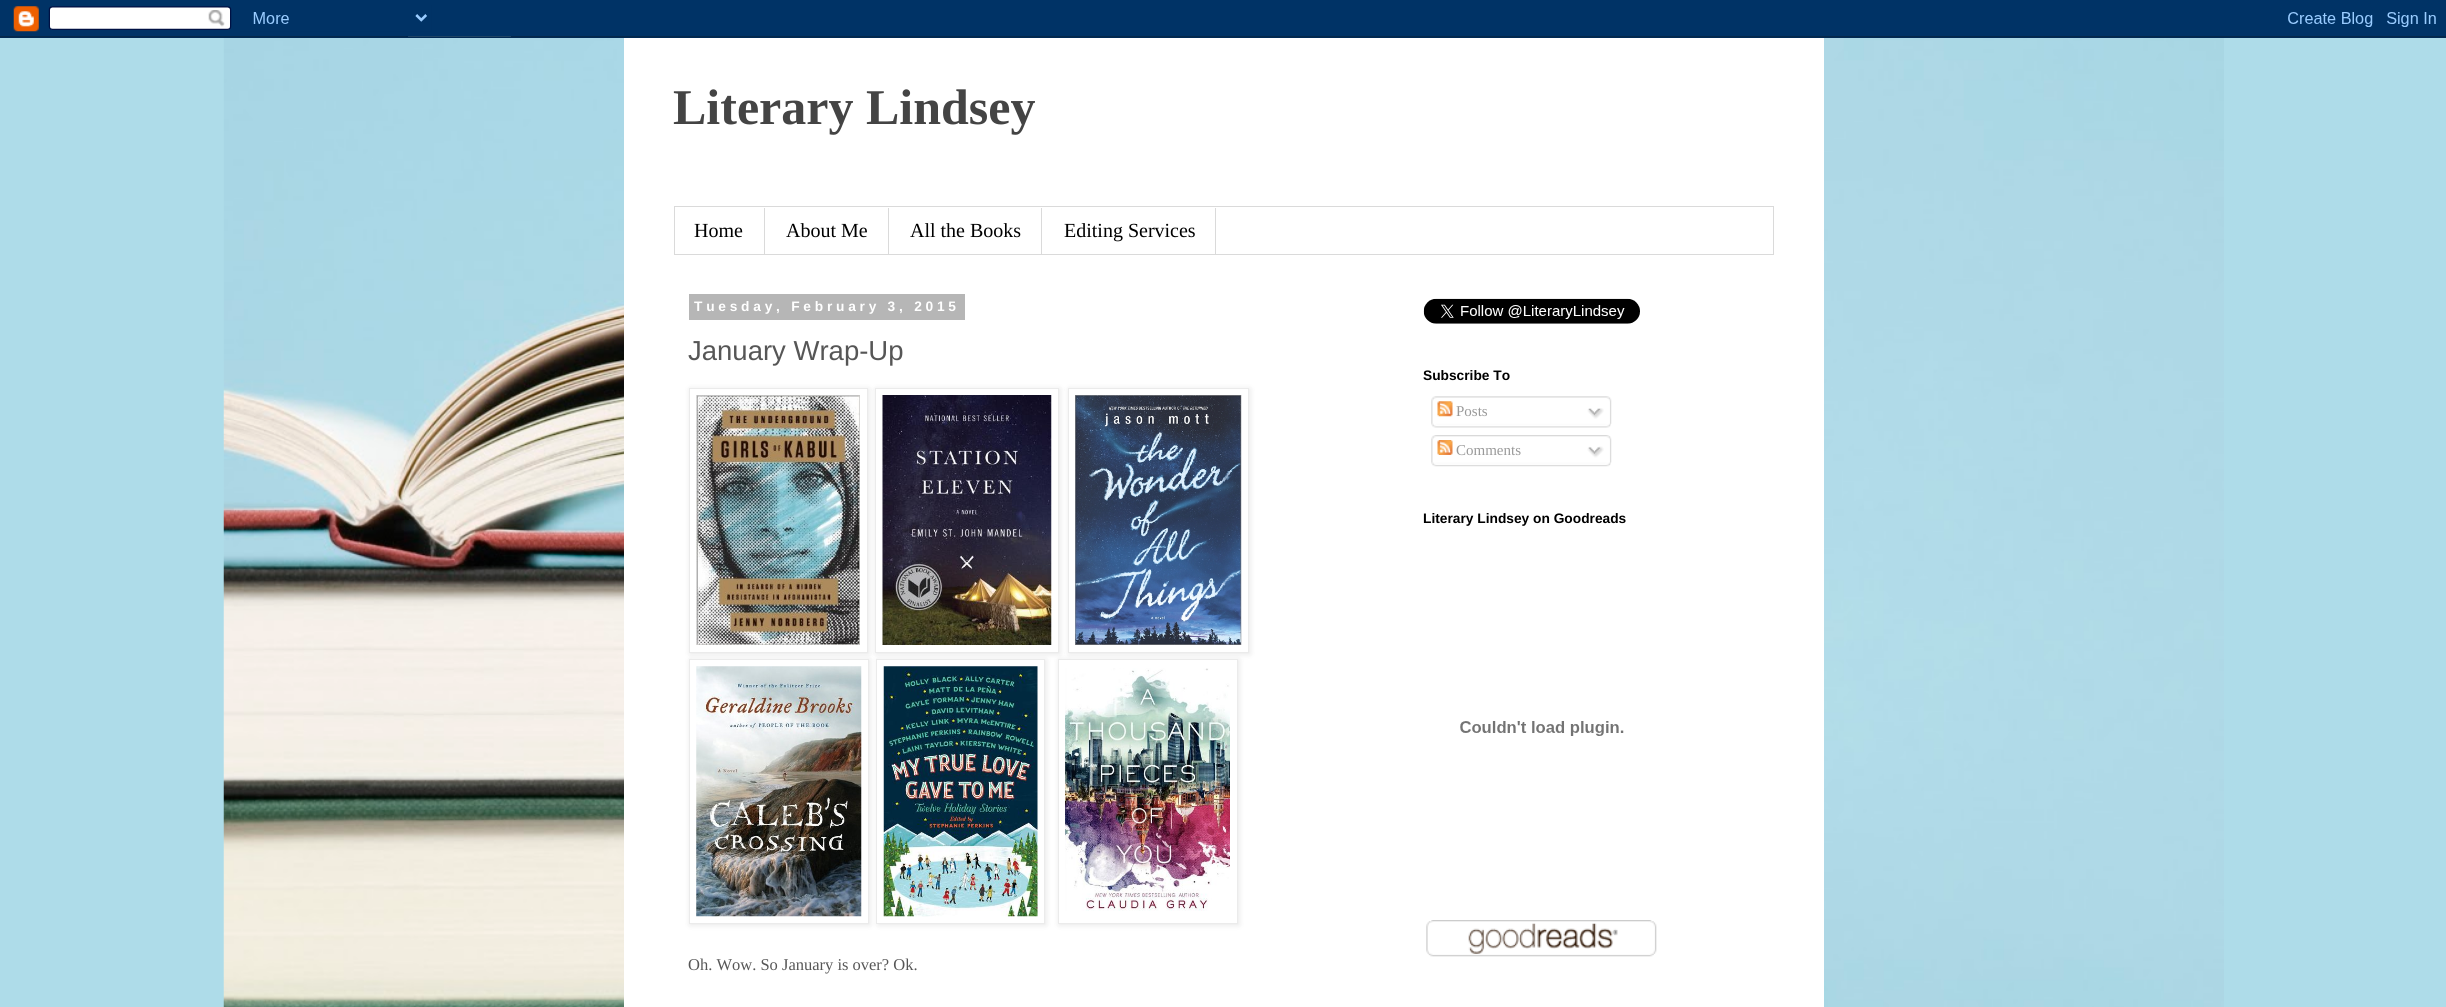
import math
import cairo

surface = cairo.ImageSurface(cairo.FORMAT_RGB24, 2446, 1007)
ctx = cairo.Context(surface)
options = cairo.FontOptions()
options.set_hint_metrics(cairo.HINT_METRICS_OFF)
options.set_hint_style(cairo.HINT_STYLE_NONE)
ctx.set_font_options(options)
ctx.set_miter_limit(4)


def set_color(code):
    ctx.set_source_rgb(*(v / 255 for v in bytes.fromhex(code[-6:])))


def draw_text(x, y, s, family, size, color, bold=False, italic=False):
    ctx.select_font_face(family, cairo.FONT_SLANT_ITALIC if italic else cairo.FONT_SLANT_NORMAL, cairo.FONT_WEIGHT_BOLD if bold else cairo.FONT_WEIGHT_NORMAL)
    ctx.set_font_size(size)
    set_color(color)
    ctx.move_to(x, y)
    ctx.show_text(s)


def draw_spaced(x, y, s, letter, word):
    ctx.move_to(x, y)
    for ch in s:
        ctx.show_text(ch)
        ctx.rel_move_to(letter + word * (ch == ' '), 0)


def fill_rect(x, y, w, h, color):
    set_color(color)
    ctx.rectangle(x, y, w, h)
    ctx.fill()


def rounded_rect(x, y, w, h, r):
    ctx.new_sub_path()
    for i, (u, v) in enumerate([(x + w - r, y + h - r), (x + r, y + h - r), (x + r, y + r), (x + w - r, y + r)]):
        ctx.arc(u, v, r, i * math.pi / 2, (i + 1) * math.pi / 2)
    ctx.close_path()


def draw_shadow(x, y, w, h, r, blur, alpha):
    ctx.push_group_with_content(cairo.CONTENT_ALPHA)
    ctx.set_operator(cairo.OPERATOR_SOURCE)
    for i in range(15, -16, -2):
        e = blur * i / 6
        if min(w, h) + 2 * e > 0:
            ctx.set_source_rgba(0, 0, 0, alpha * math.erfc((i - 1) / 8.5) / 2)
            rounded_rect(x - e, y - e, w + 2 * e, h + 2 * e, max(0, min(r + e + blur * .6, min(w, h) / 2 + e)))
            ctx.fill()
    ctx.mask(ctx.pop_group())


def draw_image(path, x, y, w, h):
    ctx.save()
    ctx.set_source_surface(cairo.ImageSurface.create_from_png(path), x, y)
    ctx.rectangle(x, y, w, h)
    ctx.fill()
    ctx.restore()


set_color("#aedce9")
ctx.paint()
draw_image("assets/img1.png", 223, 36, 2001, 971)
draw_image("assets/img2.png", 0, 0, 2446, 38)
fill_rect(624, 38, 1200, 969, "#ffffff")
draw_text(673, 124, "Literary Lindsey", "Liberation Serif", 50, "#444444", bold=True)
ctx.rectangle(674.5, 206.5, 1099, 48)
set_color("#dadada")
ctx.set_line_width(1)
ctx.stroke()
fill_rect(764, 208, 1, 46, "#dadada")
draw_text(694, 237, "Home", "Liberation Serif", 20, "#000000")
fill_rect(888, 208, 1, 46, "#dadada")
draw_text(786, 237, "About Me", "Liberation Serif", 20, "#000000")
fill_rect(1041, 208, 1, 46, "#dadada")
draw_text(910, 237, "All the Books", "Liberation Serif", 20, "#000000")
fill_rect(1215, 208, 1, 46, "#dadada")
draw_text(1064, 237, "Editing Services", "Liberation Serif", 20, "#000000")
fill_rect(689, 294, 276, 26, "#b6b6b6")
ctx.select_font_face("Liberation Sans", cairo.FONT_SLANT_NORMAL, cairo.FONT_WEIGHT_BOLD)
ctx.set_font_size(13.75)
set_color("#ffffff")
draw_spaced(694, 311, "Tuesday, February 3, 2015", 3.75, 0)
draw_text(688, 360, "January Wrap-Up", "Liberation Sans", 27.5, "#565656")
set_color("#000000")
draw_shadow(690, 389, 179, 265, 0, 3, 0.1)
set_color("#ffffff")
ctx.rectangle(689.5, 388.5, 178, 264)
ctx.fill_preserve()
set_color("#ebebeb")
ctx.stroke()
set_color("#000000")
draw_shadow(876, 389, 184, 265, 0, 3, 0.1)
draw_shadow(1069, 389, 181, 265, 0, 3, 0.1)
set_color("#ffffff")
ctx.rectangle(875.5, 388.5, 183, 264)
ctx.fill_preserve()
set_color("#ebebeb")
ctx.stroke()
set_color("#ffffff")
ctx.rectangle(1068.5, 388.5, 180, 264)
ctx.fill_preserve()
set_color("#ebebeb")
ctx.stroke()
draw_image("assets/img3.png", 696, 395, 164, 250)
draw_image("assets/img4.png", 882, 395, 170, 250)
draw_image("assets/img5.png", 1075, 395, 167, 250)
set_color("#000000")
draw_shadow(690, 660, 180, 265, 0, 3, 0.1)
set_color("#ffffff")
ctx.rectangle(689.5, 659.5, 179, 264)
ctx.fill_preserve()
set_color("#ebebeb")
ctx.stroke()
set_color("#000000")
draw_shadow(878, 660, 168, 265, 0, 3, 0.1)
draw_shadow(1059, 660, 180, 265, 0, 3, 0.1)
set_color("#ffffff")
ctx.rectangle(876.5, 659.5, 168, 264)
ctx.fill_preserve()
set_color("#ebebeb")
ctx.stroke()
set_color("#ffffff")
ctx.rectangle(1058.5, 659.5, 179, 264)
ctx.fill_preserve()
set_color("#ebebeb")
ctx.stroke()
draw_image("assets/img6.png", 696, 666, 166, 251)
draw_image("assets/img7.png", 883, 666, 155, 251)
draw_image("assets/img8.png", 1065, 668, 165, 243)
draw_text(688, 970, "Oh. Wow. So January is over? Ok.", "Liberation Serif", 16.5, "#565656")
draw_image("assets/img9.png", 1423, 298, 217, 26)
draw_text(1423, 380, "Subscribe To", "Liberation Sans", 13.75, "#000000", bold=True)
draw_image("assets/img10.png", 1431, 396, 181, 28)
draw_image("assets/img11.png", 1437, 401, 16, 16)
draw_text(1456, 416, "Posts", "Liberation Serif", 15, "#999999")
draw_image("assets/img12.png", 1587, 408, 17, 11)
draw_image("assets/img13.png", 1431, 423, 180, 5)
draw_image("assets/img14.png", 1431, 435, 181, 28)
draw_image("assets/img15.png", 1437, 440, 16, 15)
draw_text(1456, 455, "Comments", "Liberation Serif", 15, "#999999")
draw_image("assets/img16.png", 1587, 446, 17, 12)
draw_image("assets/img17.png", 1431, 462, 180, 5)
draw_text(1423, 523, "Literary Lindsey on Goodreads", "Liberation Sans", 13.75, "#000000", bold=True)
draw_image("assets/img18.png", 1460, 721, 164, 15)
draw_image("assets/img19.png", 1426, 920, 231, 37)
surface.write_to_png("output.png")
